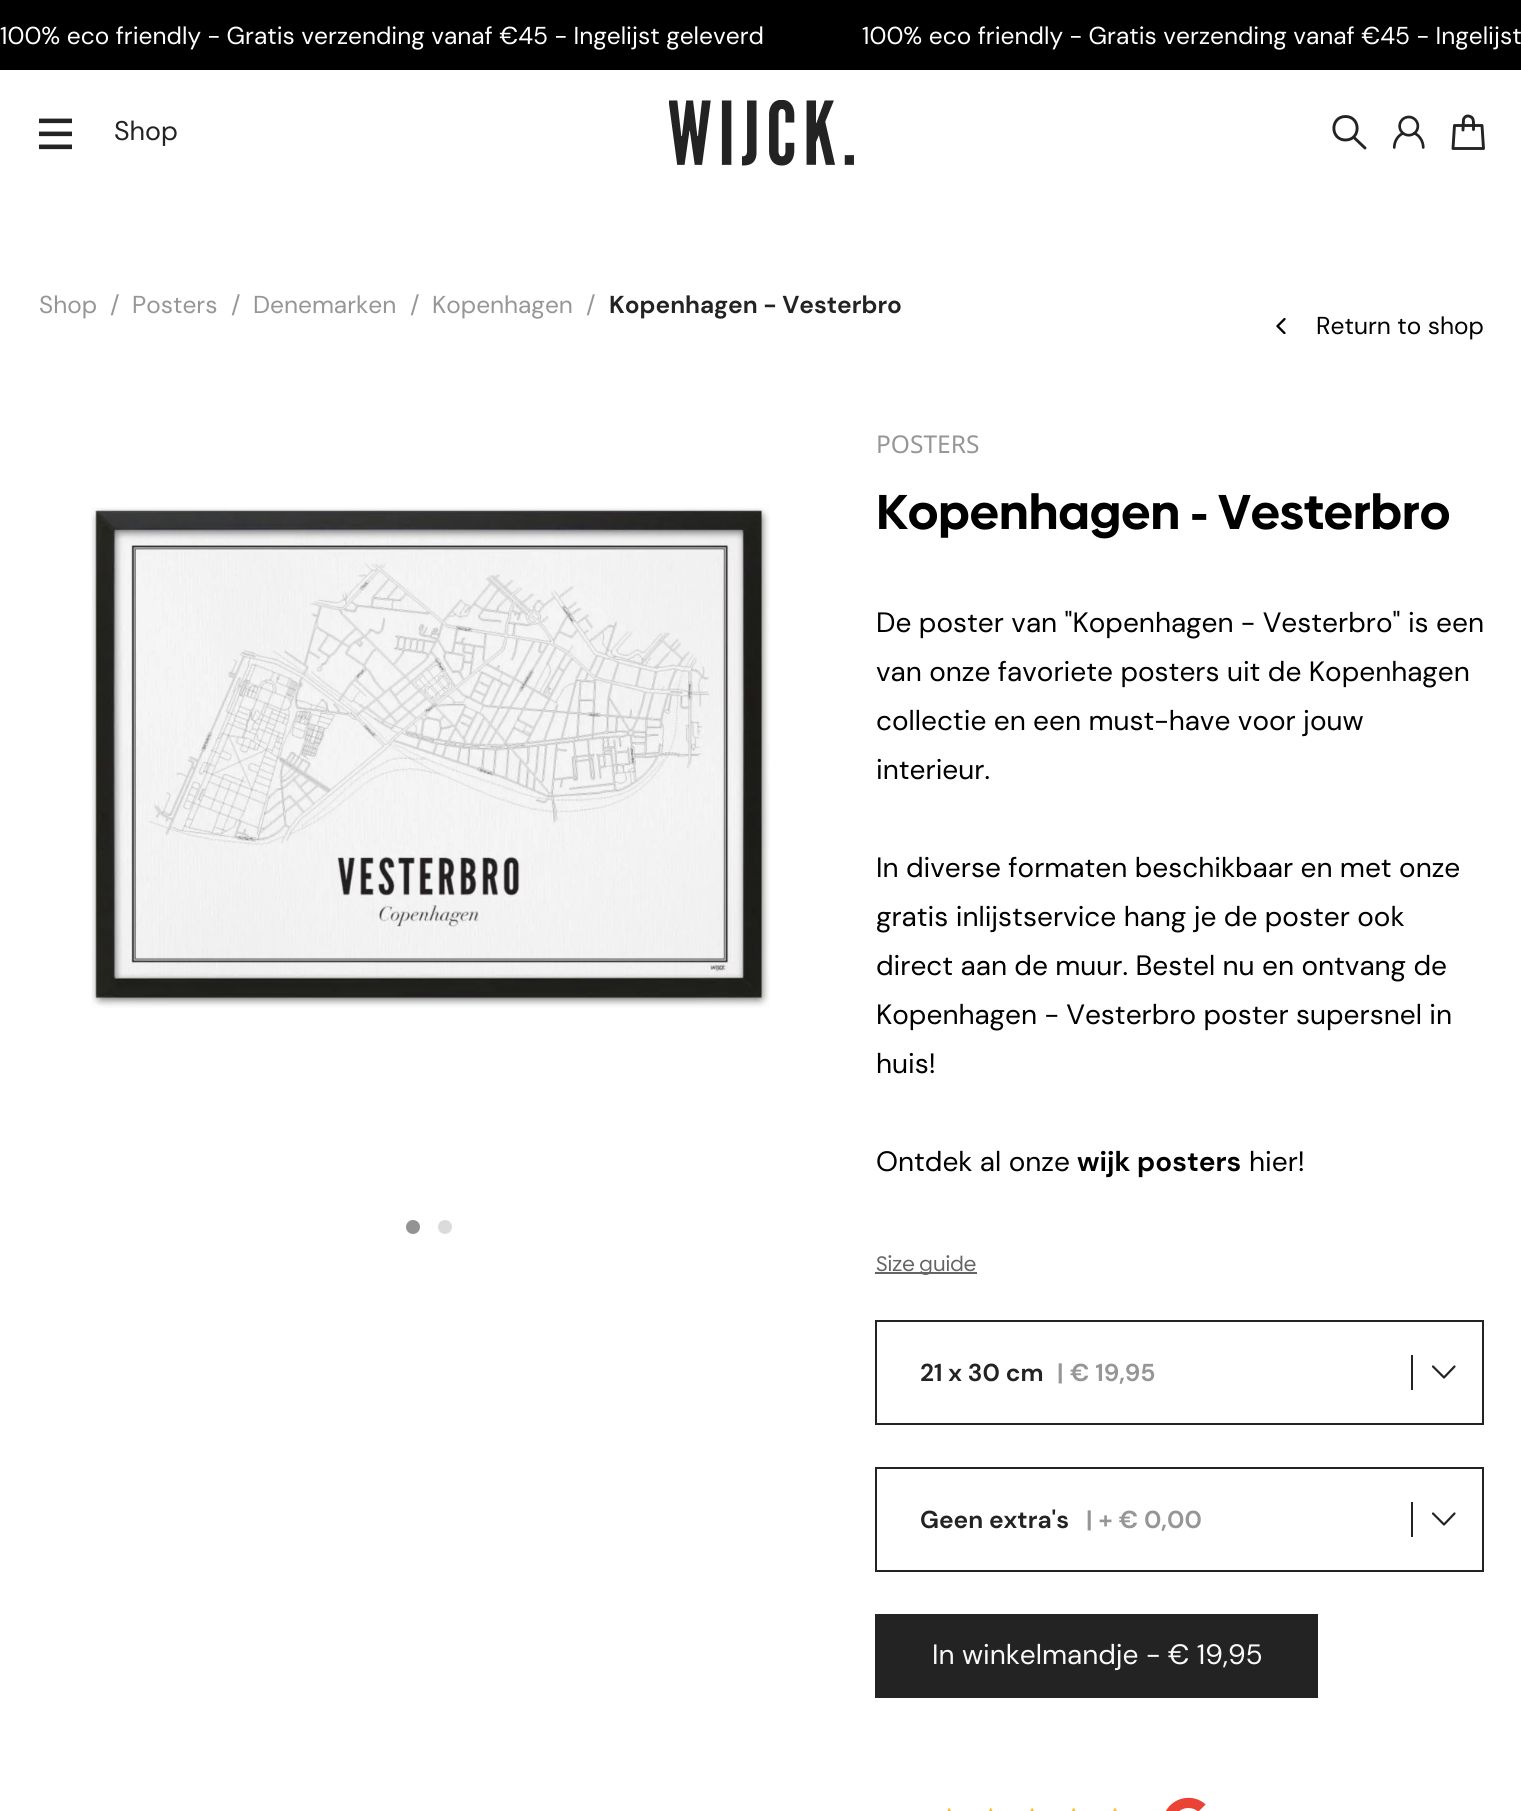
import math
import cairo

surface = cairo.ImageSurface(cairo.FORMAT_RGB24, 1521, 1811)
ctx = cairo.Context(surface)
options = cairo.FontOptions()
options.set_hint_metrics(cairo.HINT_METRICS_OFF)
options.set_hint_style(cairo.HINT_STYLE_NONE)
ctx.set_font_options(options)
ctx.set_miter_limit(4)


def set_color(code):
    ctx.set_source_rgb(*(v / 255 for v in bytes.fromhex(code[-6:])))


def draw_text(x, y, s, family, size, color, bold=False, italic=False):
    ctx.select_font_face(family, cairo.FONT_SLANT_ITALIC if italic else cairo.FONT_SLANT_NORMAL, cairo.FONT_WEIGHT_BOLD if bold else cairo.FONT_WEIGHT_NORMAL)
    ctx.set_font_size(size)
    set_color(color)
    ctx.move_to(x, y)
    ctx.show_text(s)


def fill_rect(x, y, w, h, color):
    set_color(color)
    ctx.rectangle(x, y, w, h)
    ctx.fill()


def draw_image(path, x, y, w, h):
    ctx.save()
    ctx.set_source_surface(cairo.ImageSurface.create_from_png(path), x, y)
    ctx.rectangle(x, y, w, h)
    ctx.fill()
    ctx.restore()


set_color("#ffffff")
ctx.paint()
fill_rect(0, 0, 1521, 70, "#000000")
draw_text(0, 44, "100% eco friendly - Gratis verzending vanaf €45 - Ingelijst geleverd", "DM Sans", 24.5, "#ffffff")
draw_text(862, 44, "100% eco friendly - Gratis verzending vanaf €45 - Ingelijst", "DM Sans", 24.5, "#ffffff")
draw_image("assets/img1.png", 39, 118, 33, 32)
draw_text(114, 140, "Shop", "DM Sans", 27, "#232323")
draw_image("assets/img2.png", 669, 100, 185, 66)
ctx.new_path()
ctx.move_to(1345.5, 140)
ctx.curve_to(1361, 140, 1361, 116.5, 1345.5, 116.5)
ctx.curve_to(1330, 116.5, 1330, 140, 1345.5, 140)
ctx.close_path()
ctx.set_line_width(2.9)
ctx.stroke()
ctx.new_path()
ctx.move_to(1365, 148)
ctx.line_to(1354.5, 138)
ctx.set_line_cap(cairo.LINE_CAP_ROUND)
ctx.set_line_join(cairo.LINE_JOIN_ROUND)
ctx.stroke()
draw_image("assets/img3.png", 1392, 115, 33, 34)
ctx.new_path()
ctx.move_to(1463, 130)
ctx.line_to(1463.5, 119.5)
ctx.curve_to(1464, 118, 1465, 116.5, 1467, 116)
ctx.curve_to(1468, 116, 1469, 116, 1470, 116.5)
ctx.curve_to(1473.5, 117.5, 1473.5, 121, 1473.5, 124)
ctx.line_to(1473.5, 129.5)
ctx.set_line_join(cairo.LINE_JOIN_MITER)
ctx.stroke()
ctx.new_path()
ctx.move_to(1482, 125.5)
ctx.line_to(1454.5, 125.5)
ctx.line_to(1453, 148.5)
ctx.line_to(1483.5, 148.5)
ctx.close_path()
ctx.set_line_join(cairo.LINE_JOIN_ROUND)
ctx.stroke()
draw_text(39, 313, "Shop", "DM Sans", 24.5, "#969696")
draw_text(110, 313, "/", "DM Sans", 24.5, "#969696")
draw_text(132, 313, "Posters", "DM Sans", 24.5, "#969696")
draw_text(231, 313, "/", "DM Sans", 24.5, "#969696")
draw_text(253, 313, "Denemarken", "DM Sans", 24.5, "#969696")
draw_text(410, 313, "/", "DM Sans", 24.5, "#969696")
draw_text(432, 313, "Kopenhagen", "DM Sans", 24.5, "#969696")
draw_text(586, 313, "/", "DM Sans", 24.5, "#969696")
draw_text(609, 313, "Kopenhagen - Vesterbro", "DM Sans", 24.5, "#232323", bold=True)
draw_image("assets/img4.png", 1276, 317, 10, 17)
draw_text(1316, 334, "Return to shop", "DM Sans", 24.5, "#000000")
draw_image("assets/img5.png", 91, 507, 679, 501)
set_color("#939393")
ctx.arc(413, 1227, 7, 0, 2 * math.pi)
ctx.fill()
set_color("#dbdbdb")
ctx.arc(445, 1227, 7, 0, 2 * math.pi)
ctx.fill()
draw_text(876, 453, "POSTERS", "Noto Sans", 24.5, "#969696")
draw_text(876, 529, "Kopenhagen - Vesterbro", "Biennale", 49, "#000000", bold=True)
draw_text(876, 632, "De poster van \"Kopenhagen - Vesterbro\" is een", "DM Sans", 28, "#000000")
draw_text(876, 681, "van onze favoriete posters uit de Kopenhagen", "DM Sans", 28, "#000000")
draw_text(876, 730, "collectie en een must-have voor jouw", "DM Sans", 28, "#000000")
draw_text(876, 779, "interieur.", "DM Sans", 28, "#000000")
draw_text(876, 877, "In diverse formaten beschikbaar en met onze", "DM Sans", 28, "#000000")
draw_text(876, 926, "gratis inlijstservice hang je de poster ook", "DM Sans", 28, "#000000")
draw_text(876, 975, "direct aan de muur. Bestel nu en ontvang de", "DM Sans", 28, "#000000")
draw_text(876, 1024, "Kopenhagen - Vesterbro poster supersnel in", "DM Sans", 28, "#000000")
draw_text(876, 1073, "huis!", "DM Sans", 28, "#000000")
draw_text(876, 1171, "Ontdek al onze", "DM Sans", 28, "#000000")
draw_text(1077, 1171, "wijk posters", "DM Sans", 28, "#000000", bold=True)
draw_text(1249, 1171, "hier!", "DM Sans", 28, "#000000")
fill_rect(875, 1272, 102, 2, "#646464")
draw_text(876, 1271, "Size guide", "Biennale", 21, "#646464")
ctx.rectangle(876, 1321, 607, 103)
set_color("#232323")
ctx.set_line_width(2)
ctx.set_line_cap(cairo.LINE_CAP_BUTT)
ctx.set_line_join(cairo.LINE_JOIN_MITER)
ctx.stroke()
draw_text(920, 1381, "21 x 30 cm", "DM Sans", 24.5, "#232323", bold=True)
draw_text(1057, 1381, "|", "DM Sans", 24.5, "#969696", bold=True)
draw_text(1070, 1381, "€ 19,95", "DM Sans", 24.5, "#969696", bold=True)
fill_rect(1411, 1355, 2, 35, "#232323")
ctx.new_path()
ctx.move_to(1454.5, 1366.5)
ctx.line_to(1444, 1377.5)
ctx.line_to(1433, 1366.5)
ctx.set_line_width(2.2)
ctx.set_line_cap(cairo.LINE_CAP_ROUND)
ctx.set_line_join(cairo.LINE_JOIN_ROUND)
ctx.stroke()
ctx.rectangle(876, 1468, 607, 103)
ctx.set_line_width(2)
ctx.set_line_cap(cairo.LINE_CAP_BUTT)
ctx.set_line_join(cairo.LINE_JOIN_MITER)
ctx.stroke()
draw_text(920, 1528, "Geen extra's", "DM Sans", 24.5, "#232323", bold=True)
draw_text(1086, 1528, "| + € 0,00", "DM Sans", 24.5, "#969696", bold=True)
fill_rect(1411, 1502, 2, 35, "#232323")
ctx.new_path()
ctx.move_to(1454.5, 1513.5)
ctx.line_to(1444, 1524.5)
ctx.line_to(1433, 1513.5)
ctx.set_line_width(2.2)
ctx.set_line_cap(cairo.LINE_CAP_ROUND)
ctx.set_line_join(cairo.LINE_JOIN_ROUND)
ctx.stroke()
fill_rect(875, 1614, 443, 84, "#232323")
draw_text(932, 1664, "In winkelmandje - € 19,95", "DM Sans", 28, "#f9f9f9")
draw_image("assets/img6.png", 947, 1808, 170, 3)
draw_image("assets/img7.png", 1166, 1797, 40, 14)
surface.write_to_png("output.png")
